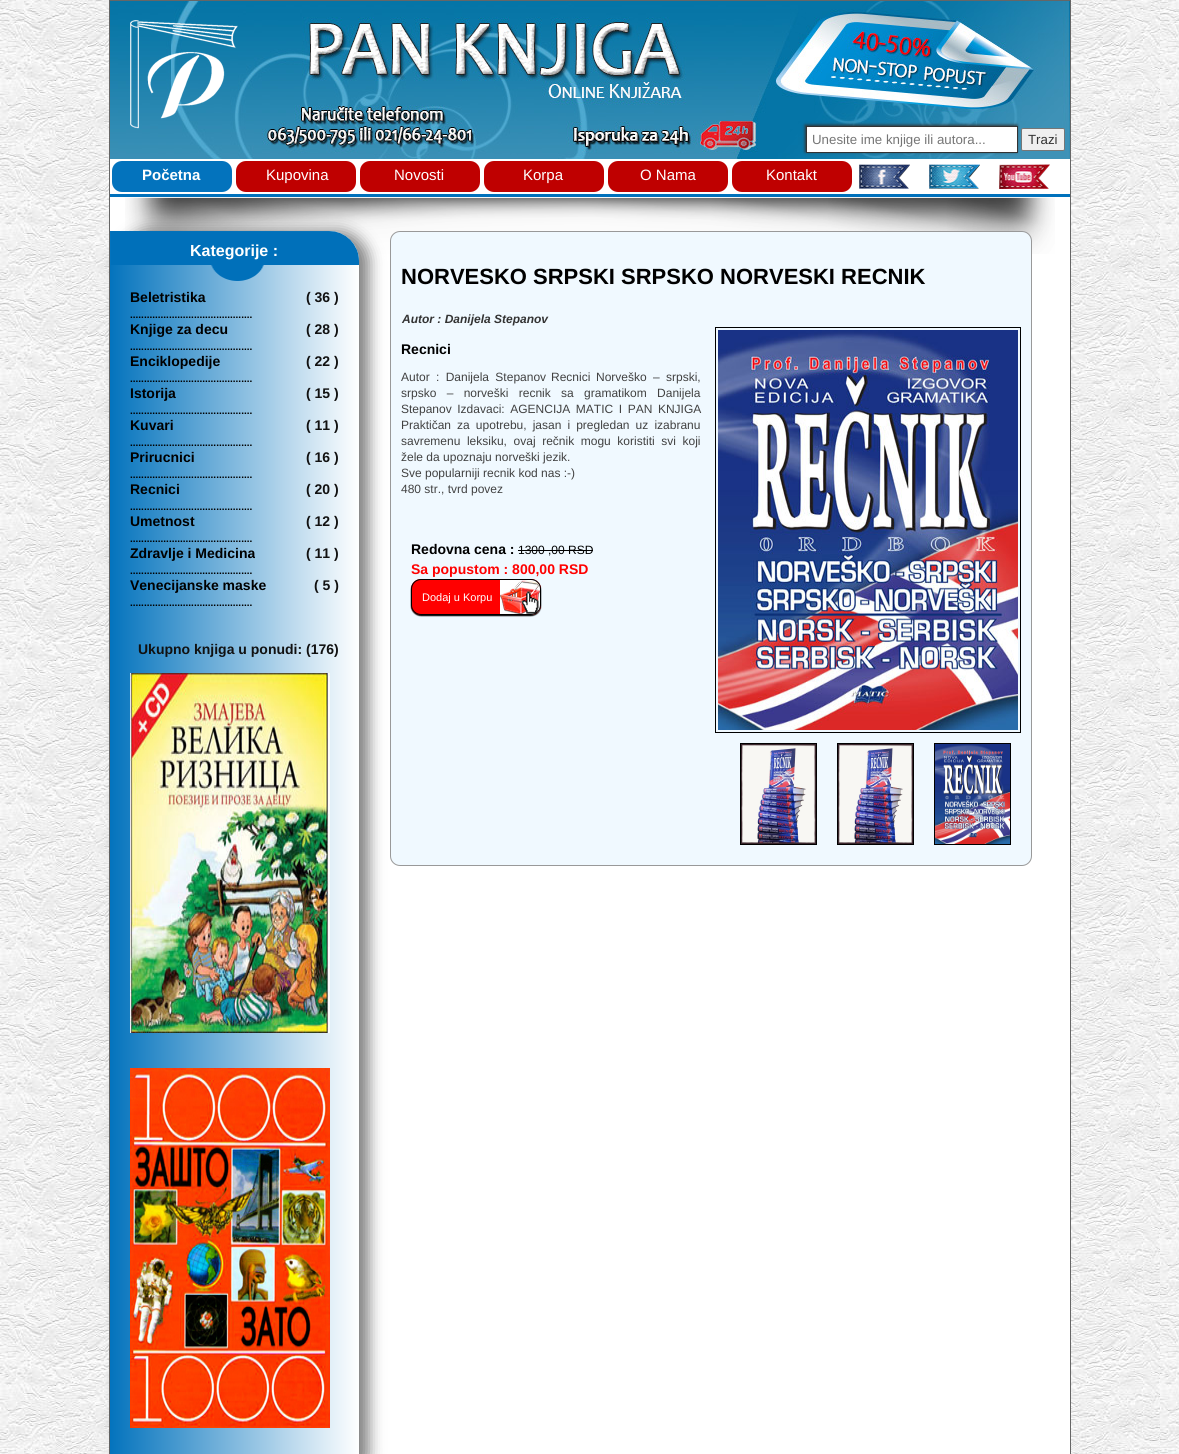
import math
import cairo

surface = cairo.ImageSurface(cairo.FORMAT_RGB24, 1179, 1454)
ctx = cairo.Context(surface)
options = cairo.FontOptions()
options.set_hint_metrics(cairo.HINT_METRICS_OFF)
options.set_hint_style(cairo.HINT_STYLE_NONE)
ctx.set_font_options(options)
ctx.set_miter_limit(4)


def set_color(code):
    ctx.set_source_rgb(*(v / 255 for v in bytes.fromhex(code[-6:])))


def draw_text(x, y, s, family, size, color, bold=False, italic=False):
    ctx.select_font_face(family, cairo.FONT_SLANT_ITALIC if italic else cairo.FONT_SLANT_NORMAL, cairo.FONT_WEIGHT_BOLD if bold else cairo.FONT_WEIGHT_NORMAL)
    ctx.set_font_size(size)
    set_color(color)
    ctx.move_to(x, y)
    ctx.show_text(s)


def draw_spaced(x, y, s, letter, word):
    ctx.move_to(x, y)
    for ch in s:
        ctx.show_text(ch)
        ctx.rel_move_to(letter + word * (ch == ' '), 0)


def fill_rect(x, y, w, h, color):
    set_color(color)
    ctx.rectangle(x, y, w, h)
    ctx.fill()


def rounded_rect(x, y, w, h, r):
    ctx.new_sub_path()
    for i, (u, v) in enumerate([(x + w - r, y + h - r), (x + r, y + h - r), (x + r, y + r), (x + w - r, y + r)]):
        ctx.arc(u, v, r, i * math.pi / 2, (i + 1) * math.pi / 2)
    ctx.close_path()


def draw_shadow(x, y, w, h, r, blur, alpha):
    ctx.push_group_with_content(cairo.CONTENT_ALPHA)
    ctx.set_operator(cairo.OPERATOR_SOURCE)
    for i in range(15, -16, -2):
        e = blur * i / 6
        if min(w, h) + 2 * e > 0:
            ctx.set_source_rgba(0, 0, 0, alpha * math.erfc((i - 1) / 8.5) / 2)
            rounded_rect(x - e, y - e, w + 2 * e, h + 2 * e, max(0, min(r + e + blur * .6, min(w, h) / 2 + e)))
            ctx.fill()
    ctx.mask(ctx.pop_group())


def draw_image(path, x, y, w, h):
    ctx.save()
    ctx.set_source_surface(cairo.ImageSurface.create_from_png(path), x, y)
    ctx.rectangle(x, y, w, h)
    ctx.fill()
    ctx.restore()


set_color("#ffffff")
ctx.paint()
draw_image("assets/img1.png", 0, 0, 1179, 1454)
fill_rect(110, 159, 960, 1295, "#ffffff")
ctx.rectangle(109.5, 0.5, 961, 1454)
set_color("#666666")
ctx.set_line_width(1)
ctx.stroke()
draw_image("assets/img2.png", 110, 1, 960, 158)
draw_image("assets/img3.png", 130, 20, 108, 109)
set_color("#333333")
draw_shadow(805, 125, 212, 27, 0, 1.5, 1)
set_color("#ffffff")
ctx.rectangle(806.5, 126.5, 211, 26)
ctx.fill_preserve()
set_color("#333333")
ctx.stroke()
draw_text(812, 144, "Unesite ime knjige ili autora...", "Liberation Sans", 13.3, "#757575")
set_color("#efefef")
rounded_rect(1021.5, 128.5, 43, 22, 1.5)
ctx.fill_preserve()
set_color("#767676")
ctx.stroke()
draw_text(1028, 144, "Trazi", "Liberation Sans", 13.3, "#333333")
set_color("#0373bd")
rounded_rect(112, 161, 120, 31, 10)
ctx.fill()
draw_text(142, 180, "Početna", "Liberation Sans", 15, "#ffffff", bold=True)
set_color("#bf0000")
rounded_rect(236, 161, 120, 31, 10)
ctx.fill()
draw_text(266, 180, "Kupovina", "Liberation Sans", 15, "#ffffff")
set_color("#bf0000")
rounded_rect(360, 161, 120, 31, 10)
ctx.fill()
draw_text(394, 180, "Novosti", "Liberation Sans", 15, "#ffffff")
set_color("#bf0000")
rounded_rect(484, 161, 120, 31, 10)
ctx.fill()
draw_text(523, 180, "Korpa", "Liberation Sans", 15, "#ffffff")
set_color("#bf0000")
rounded_rect(608, 161, 120, 31, 10)
ctx.fill()
draw_text(640, 180, "O Nama", "Liberation Sans", 15, "#ffffff")
set_color("#bf0000")
rounded_rect(732, 161, 120, 31, 10)
ctx.fill()
draw_text(766, 180, "Kontakt", "Liberation Sans", 15, "#ffffff")
draw_image("assets/img4.png", 859, 164, 51, 25)
draw_image("assets/img5.png", 929, 164, 51, 25)
draw_image("assets/img6.png", 999, 164, 51, 25)
fill_rect(110, 194, 960, 3, "#0071bc")
draw_image("assets/img7.png", 125, 197, 930, 57)
set_color("#000000")
draw_shadow(120, 231, 249, 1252, 30, 7.5, 0.5)
gradient = cairo.LinearGradient(110, 857, 359, 857)
gradient.add_color_stop_rgba(0, 0.012, 0.451, 0.741, 1)
gradient.add_color_stop_rgba(1, 1, 1, 1, 1)
ctx.set_source(gradient)
ctx.new_path()
ctx.move_to(110, 231)
ctx.line_to(329, 231)
ctx.curve_to(345.5, 231, 359, 244.5, 359, 261)
ctx.line_to(359, 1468)
ctx.curve_to(359, 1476.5, 352.5, 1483, 344, 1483)
ctx.line_to(110, 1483)
ctx.close_path()
ctx.fill()
draw_image("assets/img8.png", 111, 231, 248, 50)
draw_text(190, 256, "Kategorije :", "Liberation Sans", 16, "#ffffff", bold=True)
draw_text(130, 302, "Beletristika", "Liberation Sans", 14, "#000000", bold=True)
draw_text(306, 302, "( 36 )", "Liberation Sans", 14, "#111111", bold=True)
draw_text(130, 318, "............................................", "Liberation Sans", 10, "#000000", bold=True)
draw_text(130, 334, "Knjige za decu", "Liberation Sans", 14, "#000000", bold=True)
draw_text(306, 334, "( 28 )", "Liberation Sans", 14, "#111111", bold=True)
draw_text(130, 350, "............................................", "Liberation Sans", 10, "#000000", bold=True)
draw_text(130, 366, "Enciklopedije", "Liberation Sans", 14, "#000000", bold=True)
draw_text(306, 366, "( 22 )", "Liberation Sans", 14, "#111111", bold=True)
draw_text(130, 382, "............................................", "Liberation Sans", 10, "#000000", bold=True)
draw_text(130, 398, "Istorija", "Liberation Sans", 14, "#000000", bold=True)
draw_text(306, 398, "( 15 )", "Liberation Sans", 14, "#111111", bold=True)
draw_text(130, 414, "............................................", "Liberation Sans", 10, "#000000", bold=True)
draw_text(130, 430, "Kuvari", "Liberation Sans", 14, "#000000", bold=True)
draw_text(306, 430, "( 11 )", "Liberation Sans", 14, "#111111", bold=True)
draw_text(130, 446, "............................................", "Liberation Sans", 10, "#000000", bold=True)
draw_text(130, 462, "Prirucnici", "Liberation Sans", 14, "#000000", bold=True)
draw_text(306, 462, "( 16 )", "Liberation Sans", 14, "#111111", bold=True)
draw_text(130, 478, "............................................", "Liberation Sans", 10, "#000000", bold=True)
draw_text(130, 494, "Recnici", "Liberation Sans", 14, "#000000", bold=True)
draw_text(306, 494, "( 20 )", "Liberation Sans", 14, "#111111", bold=True)
draw_text(130, 510, "............................................", "Liberation Sans", 10, "#000000", bold=True)
draw_text(130, 526, "Umetnost", "Liberation Sans", 14, "#000000", bold=True)
draw_text(306, 526, "( 12 )", "Liberation Sans", 14, "#111111", bold=True)
draw_text(130, 542, "............................................", "Liberation Sans", 10, "#000000", bold=True)
draw_text(130, 558, "Zdravlje i Medicina", "Liberation Sans", 14, "#000000", bold=True)
draw_text(306, 558, "( 11 )", "Liberation Sans", 14, "#111111", bold=True)
draw_text(130, 574, "............................................", "Liberation Sans", 10, "#000000", bold=True)
draw_text(130, 590, "Venecijanske maske", "Liberation Sans", 14, "#000000", bold=True)
draw_text(314, 590, "( 5 )", "Liberation Sans", 14, "#111111", bold=True)
draw_text(130, 606, "............................................", "Liberation Sans", 10, "#000000", bold=True)
draw_text(138, 654, "Ukupno knjiga u ponudi: (176)", "Liberation Sans", 14, "#111111", bold=True)
draw_image("assets/img9.png", 130, 673, 200, 360)
draw_image("assets/img10.png", 130, 1068, 200, 360)
set_color("#f0f9ff")
rounded_rect(390.5, 231.5, 641, 634, 9.5)
ctx.fill_preserve()
set_color("#999999")
ctx.stroke()
draw_text(401, 284, "NORVESKO SRPSKI SRPSKO NORVESKI RECNIK", "Liberation Sans", 22, "#000000", bold=True)
draw_text(402, 323, "Autor : Danijela Stepanov", "Liberation Sans", 12, "#333333", bold=True, italic=True)
draw_text(401, 354, "Recnici", "Liberation Sans", 14, "#000000", bold=True)
ctx.select_font_face("Liberation Sans")
ctx.set_font_size(12)
set_color("#414141")
draw_spaced(401, 381, "Autor : Danijela Stepanov", 0, 3)
draw_text(551, 381, "Recnici", "Liberation Sans", 12, "#414141")
draw_spaced(596, 381, "Norveško – srpski,", 0, 3)
draw_spaced(401, 397, "srpsko – norveški recnik sa gramatikom Danijela", 0, 7)
draw_spaced(401, 413, "Stepanov Izdavaci: AGENCIJA MATIC I PAN KNJIGA", 0, 2.25)
draw_spaced(401, 429, "Praktičan za upotrebu, jasan i pregledan uz izabranu", 0, 2.75)
draw_spaced(401, 445, "savremenu leksiku, ovaj rečnik mogu koristiti svi koji", 0, 3.25)
draw_text(401, 461, "žele da upoznaju norveški jezik.", "Liberation Sans", 12, "#414141")
draw_text(401, 477, "Sve popularniji recnik kod nas :-)", "Liberation Sans", 12, "#414141")
draw_text(401, 493, "480 str., tvrd povez", "Liberation Sans", 12, "#414141")
draw_text(411, 554, "Redovna cena :", "Liberation Sans", 14, "#000000", bold=True)
draw_text(518, 554, "1300 ,00 RSD", "Liberation Sans", 12, "#000000")
fill_rect(518, 550, 75, 1, "#000000")
draw_text(411, 574, "Sa popustom : 800,00 RSD", "Liberation Sans", 14, "#ff0000", bold=True)
set_color("#000000")
draw_shadow(411, 580, 130, 36, 10, 0.5, 1)
set_color("#ff0000")
rounded_rect(411, 579, 130, 36, 10)
ctx.fill()
draw_image("assets/img11.png", 500, 580, 40, 35)
rounded_rect(411.5, 579.5, 129, 35, 9.5)
set_color("#000000")
ctx.stroke()
draw_text(422, 601, "Dodaj u Korpu", "Liberation Sans", 11, "#ffffff")
ctx.rectangle(715.5, 327.5, 305, 405)
set_color("#000000")
ctx.stroke()
draw_image("assets/img12.png", 718, 330, 300, 400)
ctx.rectangle(740.5, 743.5, 76, 101)
ctx.stroke()
draw_image("assets/img13.png", 741, 744, 75, 100)
ctx.rectangle(837.5, 743.5, 76, 101)
ctx.stroke()
draw_image("assets/img13.png", 838, 744, 75, 100)
ctx.rectangle(934.5, 743.5, 76, 101)
ctx.stroke()
draw_image("assets/img14.png", 935, 744, 75, 100)
surface.write_to_png("output.png")
